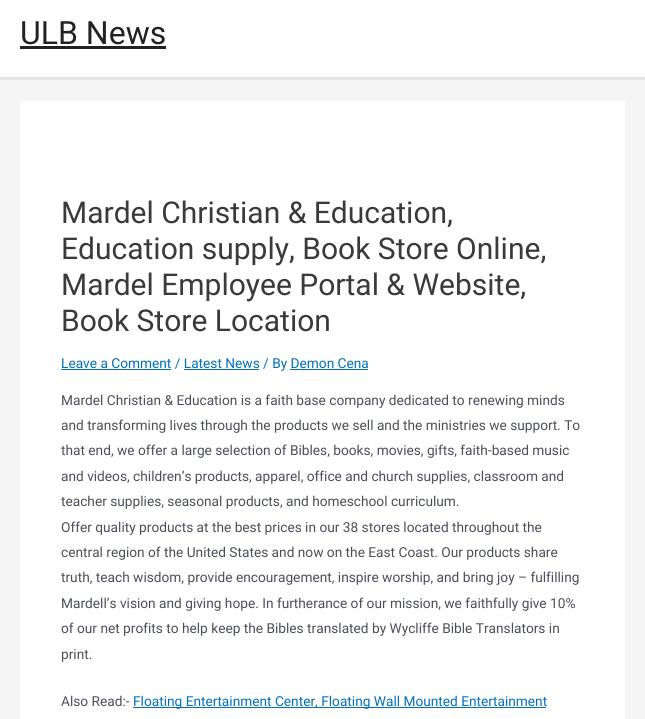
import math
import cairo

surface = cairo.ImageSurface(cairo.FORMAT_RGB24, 645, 719)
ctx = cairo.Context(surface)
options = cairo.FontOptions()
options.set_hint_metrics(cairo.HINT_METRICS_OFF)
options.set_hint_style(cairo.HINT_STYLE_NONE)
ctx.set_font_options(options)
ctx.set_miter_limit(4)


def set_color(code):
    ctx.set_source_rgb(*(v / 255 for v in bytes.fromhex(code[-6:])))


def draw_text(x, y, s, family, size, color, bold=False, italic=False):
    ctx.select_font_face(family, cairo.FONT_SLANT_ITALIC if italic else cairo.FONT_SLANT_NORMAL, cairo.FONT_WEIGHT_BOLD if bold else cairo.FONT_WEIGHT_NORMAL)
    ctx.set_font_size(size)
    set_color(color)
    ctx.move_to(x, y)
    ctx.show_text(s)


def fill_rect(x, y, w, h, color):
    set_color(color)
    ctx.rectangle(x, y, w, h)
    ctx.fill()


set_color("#f5f5f5")
ctx.paint()
fill_rect(0, 0, 645, 77, "#ffffff")
fill_rect(0, 77, 645, 3, "#e5e5e5")
draw_text(20, 44, "ULB News", "Roboto", 32, "#222222")
fill_rect(20, 46, 146, 3, "#222222")
fill_rect(20, 101, 605, 618, "#ffffff")
draw_text(61, 223, "Mardel Christian & Education,", "Roboto", 30, "#3a3a3a")
draw_text(61, 259, "Education supply, Book Store Online,", "Roboto", 30, "#3a3a3a")
draw_text(61, 295, "Mardel Employee Portal & Website,", "Roboto", 30, "#3a3a3a")
draw_text(61, 331, "Book Store Location", "Roboto", 30, "#3a3a3a")
fill_rect(61, 369, 110, 1, "#0170b9")
draw_text(61, 368, "Leave a Comment / Latest News / By Demon Cena", "Roboto", 13.7, "#0170b9")
fill_rect(184, 369, 75, 1, "#0170b9")
fill_rect(290, 369, 78, 1, "#0170b9")
draw_text(61, 405, "Mardel Christian & Education is a faith base company dedicated to renewing minds", "Roboto", 13.7, "#4b4f58")
draw_text(61, 430, "and transforming lives through the products we sell and the ministries we support. To", "Roboto", 13.7, "#4b4f58")
draw_text(61, 455, "that end, we offer a large selection of Bibles, books, movies, gifts, faith-based music", "Roboto", 13.7, "#4b4f58")
draw_text(61, 481, "and videos, children’s products, apparel, office and church supplies, classroom and", "Roboto", 13.7, "#4b4f58")
draw_text(61, 506, "teacher supplies, seasonal products, and homeschool curriculum.", "Roboto", 13.7, "#4b4f58")
draw_text(61, 532, "Offer quality products at the best prices in our 38 stores located throughout the", "Roboto", 13.7, "#4b4f58")
draw_text(61, 557, "central region of the United States and now on the East Coast. Our products share", "Roboto", 13.7, "#4b4f58")
draw_text(61, 582, "truth, teach wisdom, provide encouragement, inspire worship, and bring joy – fulfilling", "Roboto", 13.7, "#4b4f58")
draw_text(61, 608, "Mardell’s vision and giving hope. In furtherance of our mission, we faithfully give 10%", "Roboto", 13.7, "#4b4f58")
draw_text(61, 633, "of our net profits to help keep the Bibles translated by Wycliffe Bible Translators in", "Roboto", 13.7, "#4b4f58")
draw_text(61, 659, "print.", "Roboto", 13.7, "#4b4f58")
draw_text(61, 706, "Also Read:-", "Roboto", 13.7, "#4b4f58")
fill_rect(133, 707, 413, 1, "#0170b9")
draw_text(133, 706, "Floating Entertainment Center, Floating Wall Mounted Entertainment", "Roboto", 13.7, "#0170b9")
surface.write_to_png("output.png")
